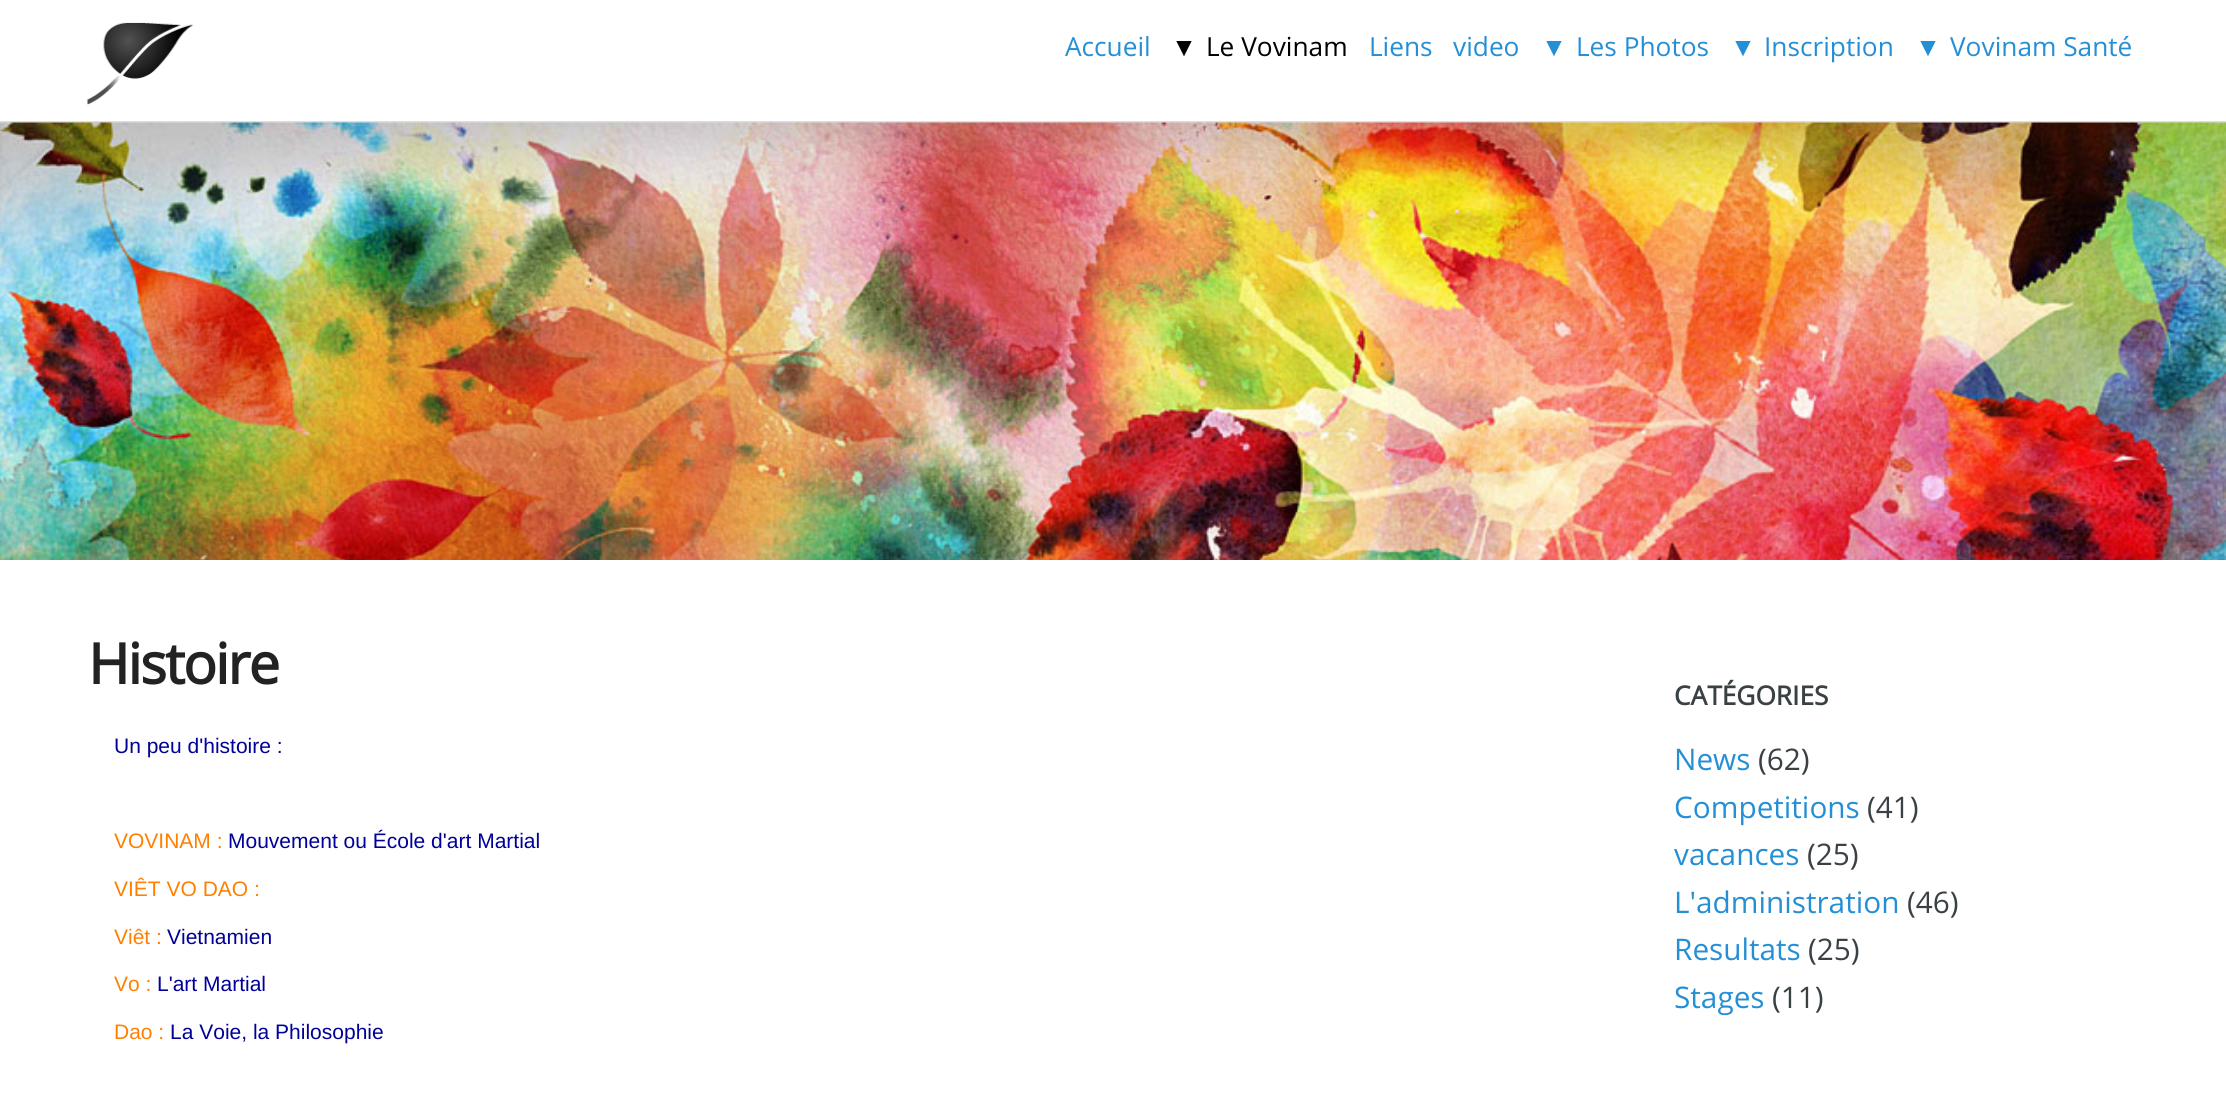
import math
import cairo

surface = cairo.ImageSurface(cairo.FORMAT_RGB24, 2226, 1113)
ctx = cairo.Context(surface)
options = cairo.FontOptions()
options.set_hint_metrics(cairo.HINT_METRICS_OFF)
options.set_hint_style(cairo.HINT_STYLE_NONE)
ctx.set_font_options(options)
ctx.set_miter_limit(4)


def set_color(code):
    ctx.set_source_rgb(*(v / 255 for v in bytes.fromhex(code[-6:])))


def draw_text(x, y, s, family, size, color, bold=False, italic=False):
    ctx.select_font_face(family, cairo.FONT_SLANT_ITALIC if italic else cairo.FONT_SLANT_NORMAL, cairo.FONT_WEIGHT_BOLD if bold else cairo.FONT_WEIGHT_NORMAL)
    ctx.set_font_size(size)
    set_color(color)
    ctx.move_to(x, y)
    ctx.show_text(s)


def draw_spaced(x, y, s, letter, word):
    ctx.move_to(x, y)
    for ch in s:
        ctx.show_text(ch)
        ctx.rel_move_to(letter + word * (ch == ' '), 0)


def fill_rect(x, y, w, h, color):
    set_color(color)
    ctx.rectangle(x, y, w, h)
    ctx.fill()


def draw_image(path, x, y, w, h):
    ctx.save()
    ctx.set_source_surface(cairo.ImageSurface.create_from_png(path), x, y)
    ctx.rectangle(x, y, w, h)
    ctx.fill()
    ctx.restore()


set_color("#ffffff")
ctx.paint()
fill_rect(0, 121, 2226, 2, "#dddddd")
draw_image("assets/img1.png", 87, 22, 106, 83)
draw_text(1065, 56, "Accueil", "Open Sans", 26.25, "#258fd6")
draw_text(1171, 56, "▼", "Liberation Sans", 26.25, "#000000")
draw_text(1206, 56, "Le Vovinam", "Open Sans", 26.25, "#000000")
draw_text(1369, 56, "Liens", "Open Sans", 26.25, "#258fd6")
draw_text(1453, 56, "video", "Open Sans", 26.25, "#258fd6")
draw_text(1541, 56, "▼", "Liberation Sans", 26.25, "#258fd6")
draw_text(1576, 56, "Les Photos", "Open Sans", 26.25, "#258fd6")
draw_text(1730, 56, "▼", "Liberation Sans", 26.25, "#258fd6")
draw_text(1764, 56, "Inscription", "Open Sans", 26.25, "#258fd6")
draw_text(1915, 56, "▼", "Liberation Sans", 26.25, "#258fd6")
draw_text(1950, 56, "Vovinam Santé", "Open Sans", 26.25, "#258fd6")
draw_image("assets/img2.png", 0, 122, 2226, 438)
ctx.select_font_face("Open Sans", cairo.FONT_SLANT_NORMAL, cairo.FONT_WEIGHT_BOLD)
ctx.set_font_size(56)
set_color("#222222")
draw_spaced(88, 684, "Histoire", -1.75, 0)
draw_text(114, 753, "Un peu d'histoire :", "Liberation Sans", 21, "#000099")
draw_text(114, 848, "VOVINAM :", "Liberation Sans", 21, "#ff8000")
draw_text(228, 848, "Mouvement ou École d'art Martial", "Liberation Sans", 21, "#000099")
draw_text(114, 896, "VIÊT VO DAO :", "Liberation Sans", 21, "#ff8000")
draw_text(114, 944, "Viêt :", "Liberation Sans", 21, "#ff8000")
draw_text(167, 944, "Vietnamien", "Liberation Sans", 21, "#000099")
draw_text(114, 991, "Vo :", "Liberation Sans", 21, "#ff8000")
draw_text(157, 991, "L'art Martial", "Liberation Sans", 21, "#000099")
draw_text(114, 1039, "Dao :", "Liberation Sans", 21, "#ff8000")
draw_text(170, 1039, "La Voie, la Philosophie", "Liberation Sans", 21, "#000099")
draw_text(1674, 705, "CATÉGORIES", "Open Sans", 26.25, "#3a4145", bold=True)
draw_text(1674, 770, "News", "Open Sans", 29.75, "#258fd6")
draw_text(1758, 770, "(62)", "Open Sans", 29.75, "#3a4145")
draw_text(1674, 818, "Competitions", "Open Sans", 29.75, "#258fd6")
draw_text(1867, 818, "(41)", "Open Sans", 29.75, "#3a4145")
draw_text(1674, 865, "vacances", "Open Sans", 29.75, "#258fd6")
draw_text(1807, 865, "(25)", "Open Sans", 29.75, "#3a4145")
draw_text(1674, 913, "L'administration", "Open Sans", 29.75, "#258fd6")
draw_text(1907, 913, "(46)", "Open Sans", 29.75, "#3a4145")
draw_text(1674, 960, "Resultats", "Open Sans", 29.75, "#258fd6")
draw_text(1808, 960, "(25)", "Open Sans", 29.75, "#3a4145")
draw_text(1674, 1008, "Stages", "Open Sans", 29.75, "#258fd6")
draw_text(1772, 1008, "(11)", "Open Sans", 29.75, "#3a4145")
surface.write_to_png("output.png")
